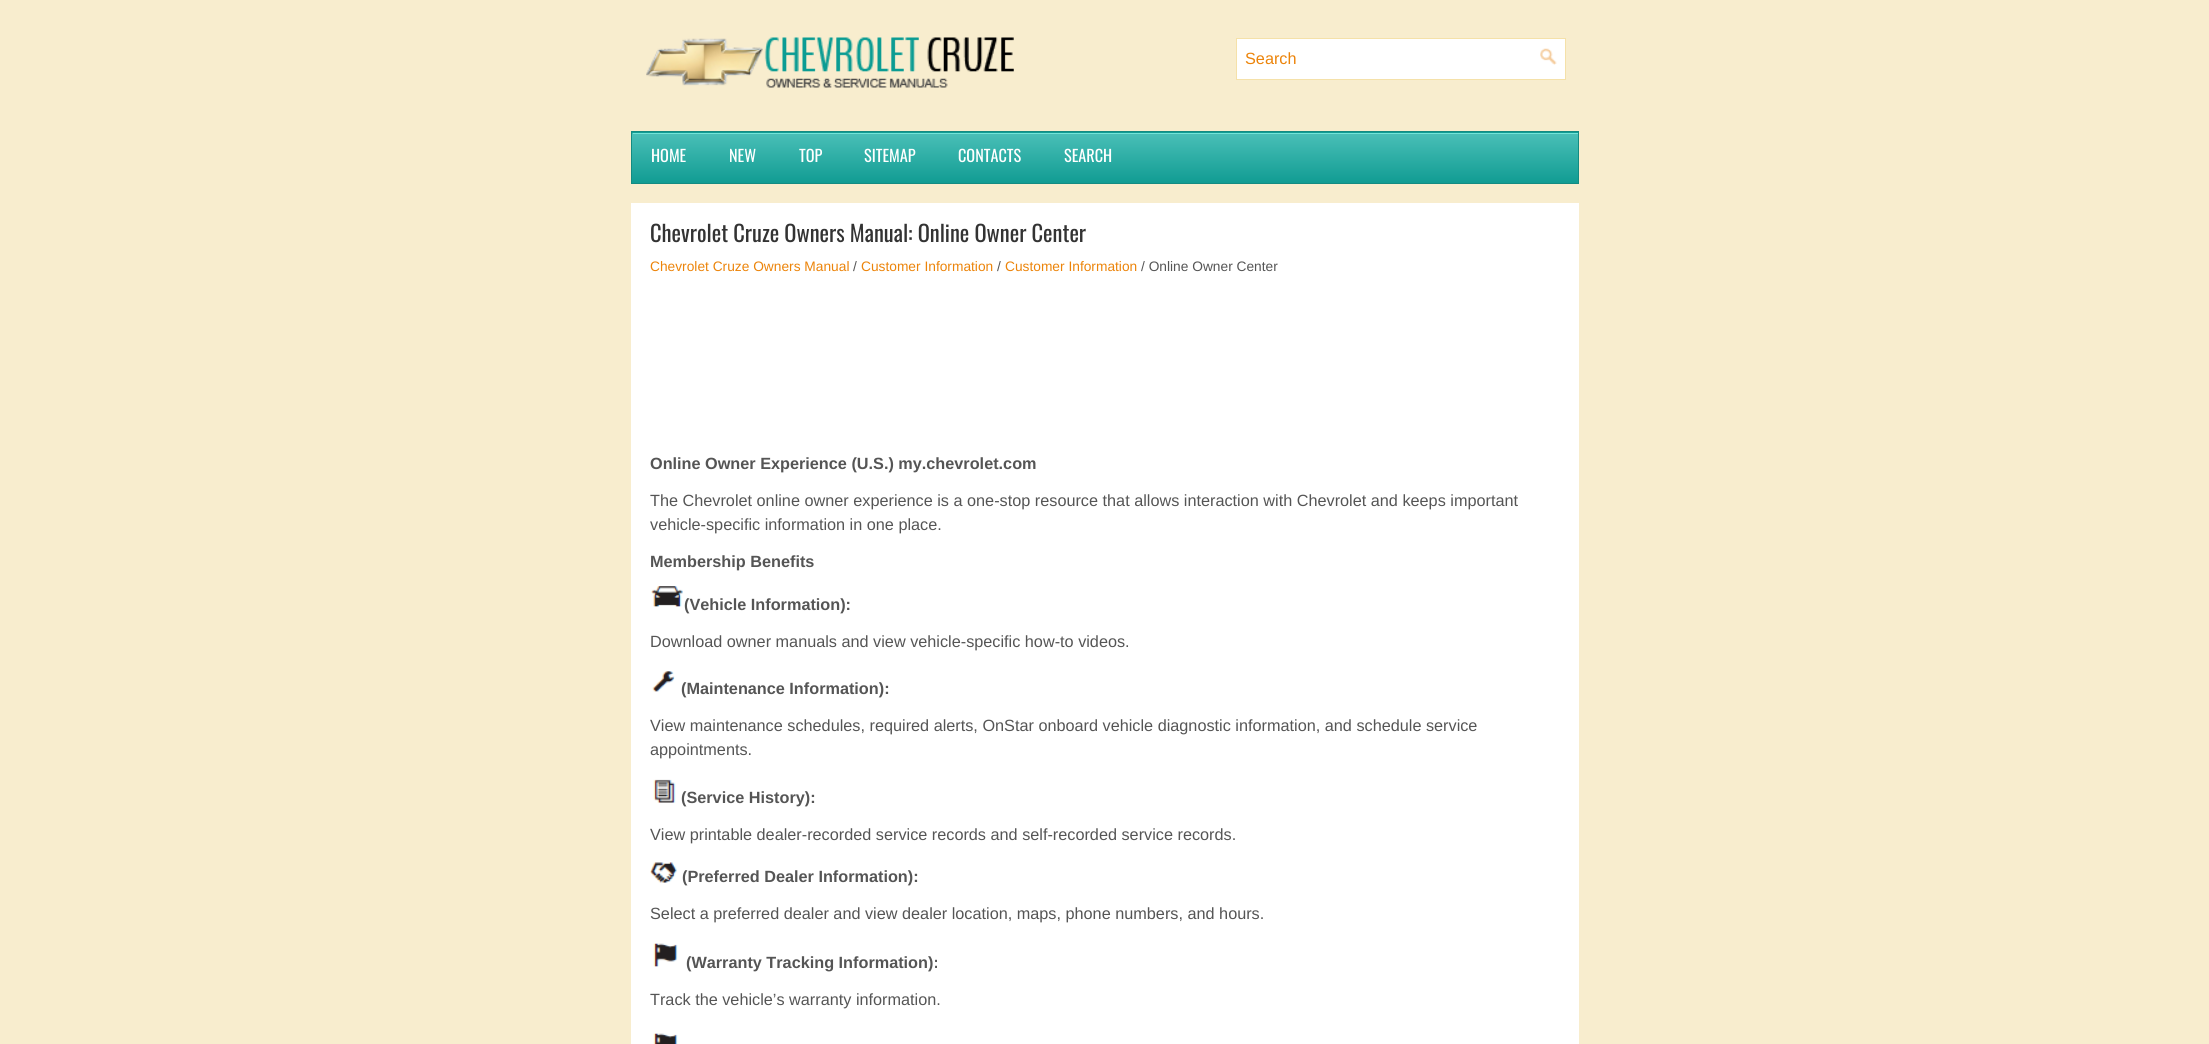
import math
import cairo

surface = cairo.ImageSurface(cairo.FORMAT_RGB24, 2209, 1044)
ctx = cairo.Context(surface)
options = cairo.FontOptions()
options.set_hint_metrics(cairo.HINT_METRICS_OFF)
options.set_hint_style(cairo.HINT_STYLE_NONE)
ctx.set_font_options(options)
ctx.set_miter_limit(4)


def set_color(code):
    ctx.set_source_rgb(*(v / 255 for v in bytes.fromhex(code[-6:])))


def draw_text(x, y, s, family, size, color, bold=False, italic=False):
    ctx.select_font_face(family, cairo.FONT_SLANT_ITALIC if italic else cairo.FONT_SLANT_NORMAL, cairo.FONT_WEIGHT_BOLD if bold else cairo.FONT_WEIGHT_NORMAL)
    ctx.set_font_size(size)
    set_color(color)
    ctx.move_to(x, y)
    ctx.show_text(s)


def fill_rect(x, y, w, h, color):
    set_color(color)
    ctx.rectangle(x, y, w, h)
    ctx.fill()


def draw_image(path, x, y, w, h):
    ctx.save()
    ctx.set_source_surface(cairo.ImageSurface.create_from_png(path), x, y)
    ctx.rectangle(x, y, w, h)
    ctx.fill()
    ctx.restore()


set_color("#f8edce")
ctx.paint()
draw_image("assets/img1.png", 646, 37, 368, 51)
set_color("#ffffff")
ctx.rectangle(1236.5, 38.5, 329, 41)
ctx.fill_preserve()
set_color("#f5e1a9")
ctx.set_line_width(1)
ctx.stroke()
draw_text(1245, 64, "Search", "Liberation Sans", 16.25, "#ec840a")
draw_image("assets/img2.png", 1540, 48, 17, 17)
gradient = cairo.LinearGradient(1105, 82, 1105, 133)
gradient.add_color_stop_rgba(0, 0.294, 0.753, 0.722, 1)
gradient.add_color_stop_rgba(1, 0.067, 0.612, 0.576, 1)
ctx.set_source(gradient)
ctx.rectangle(631, 132, 948, 1)
ctx.fill()
gradient = cairo.LinearGradient(1105, 132, 1105, 183)
gradient.add_color_stop_rgba(0, 0.294, 0.753, 0.722, 1)
gradient.add_color_stop_rgba(1, 0.067, 0.612, 0.576, 1)
ctx.set_source(gradient)
ctx.rectangle(632, 133, 946, 50)
ctx.fill()
fill_rect(633, 133, 945, 1, "#72e4d8")
ctx.rectangle(631.5, 131.5, 947, 52)
set_color("#148b82")
ctx.stroke()
draw_text(651, 162, "HOME", "Oswald", 16.25, "#ffffff")
draw_text(729, 162, "NEW", "Oswald", 16.25, "#ffffff")
draw_text(799, 162, "TOP", "Oswald", 16.25, "#ffffff")
draw_text(864, 162, "SITEMAP", "Oswald", 16.25, "#ffffff")
draw_text(958, 162, "CONTACTS", "Oswald", 16.25, "#ffffff")
draw_text(1064, 162, "SEARCH", "Oswald", 16.25, "#ffffff")
fill_rect(631, 203, 948, 841, "#ffffff")
draw_text(650, 242, "Chevrolet Cruze Owners Manual: Online Owner Center", "Oswald", 22.5, "#333333")
draw_text(650, 271, "Chevrolet Cruze Owners Manual", "Liberation Sans", 13.75, "#ec840a")
draw_text(853, 271, "/", "Liberation Sans", 13.75, "#555555")
draw_text(861, 271, "Customer Information", "Liberation Sans", 13.75, "#ec840a")
draw_text(997, 271, "/", "Liberation Sans", 13.75, "#555555")
draw_text(1005, 271, "Customer Information", "Liberation Sans", 13.75, "#ec840a")
draw_text(1141, 271, "/ Online Owner Center", "Liberation Sans", 13.75, "#555555")
draw_text(650, 469, "Online Owner Experience (U.S.) my.chevrolet.com", "Liberation Sans", 16.25, "#555555", bold=True)
draw_text(650, 506, "The Chevrolet online owner experience is a one-stop resource that allows interaction with Chevrolet and keeps important", "Liberation Sans", 16.25, "#555555")
draw_text(650, 530, "vehicle-specific information in one place.", "Liberation Sans", 16.25, "#555555")
draw_text(650, 567, "Membership Benefits", "Liberation Sans", 16.25, "#555555", bold=True)
draw_image("assets/img3.png", 651, 586, 32, 21)
draw_text(684, 610, "(Vehicle Information):", "Liberation Sans", 16.25, "#555555", bold=True)
draw_text(650, 647, "Download owner manuals and view vehicle-specific how-to videos.", "Liberation Sans", 16.25, "#555555")
draw_image("assets/img4.png", 652, 671, 23, 21)
draw_text(681, 694, "(Maintenance Information):", "Liberation Sans", 16.25, "#555555", bold=True)
draw_text(650, 731, "View maintenance schedules, required alerts, OnStar onboard vehicle diagnostic information, and schedule service", "Liberation Sans", 16.25, "#555555")
draw_text(650, 755, "appointments.", "Liberation Sans", 16.25, "#555555")
draw_image("assets/img5.png", 653, 779, 23, 24)
draw_text(681, 803, "(Service History):", "Liberation Sans", 16.25, "#555555", bold=True)
draw_text(650, 840, "View printable dealer-recorded service records and self-recorded service records.", "Liberation Sans", 16.25, "#555555")
draw_image("assets/img6.png", 650, 862, 28, 21)
draw_text(682, 882, "(Preferred Dealer Information):", "Liberation Sans", 16.25, "#555555", bold=True)
draw_text(650, 919, "Select a preferred dealer and view dealer location, maps, phone numbers, and hours.", "Liberation Sans", 16.25, "#555555")
draw_image("assets/img7.png", 653, 943, 25, 24)
draw_text(686, 968, "(Warranty Tracking Information):", "Liberation Sans", 16.25, "#555555", bold=True)
draw_text(650, 1005, "Track the vehicle’s warranty information.", "Liberation Sans", 16.25, "#555555")
draw_image("assets/img8.png", 653, 1033, 25, 11)
surface.write_to_png("output.png")
